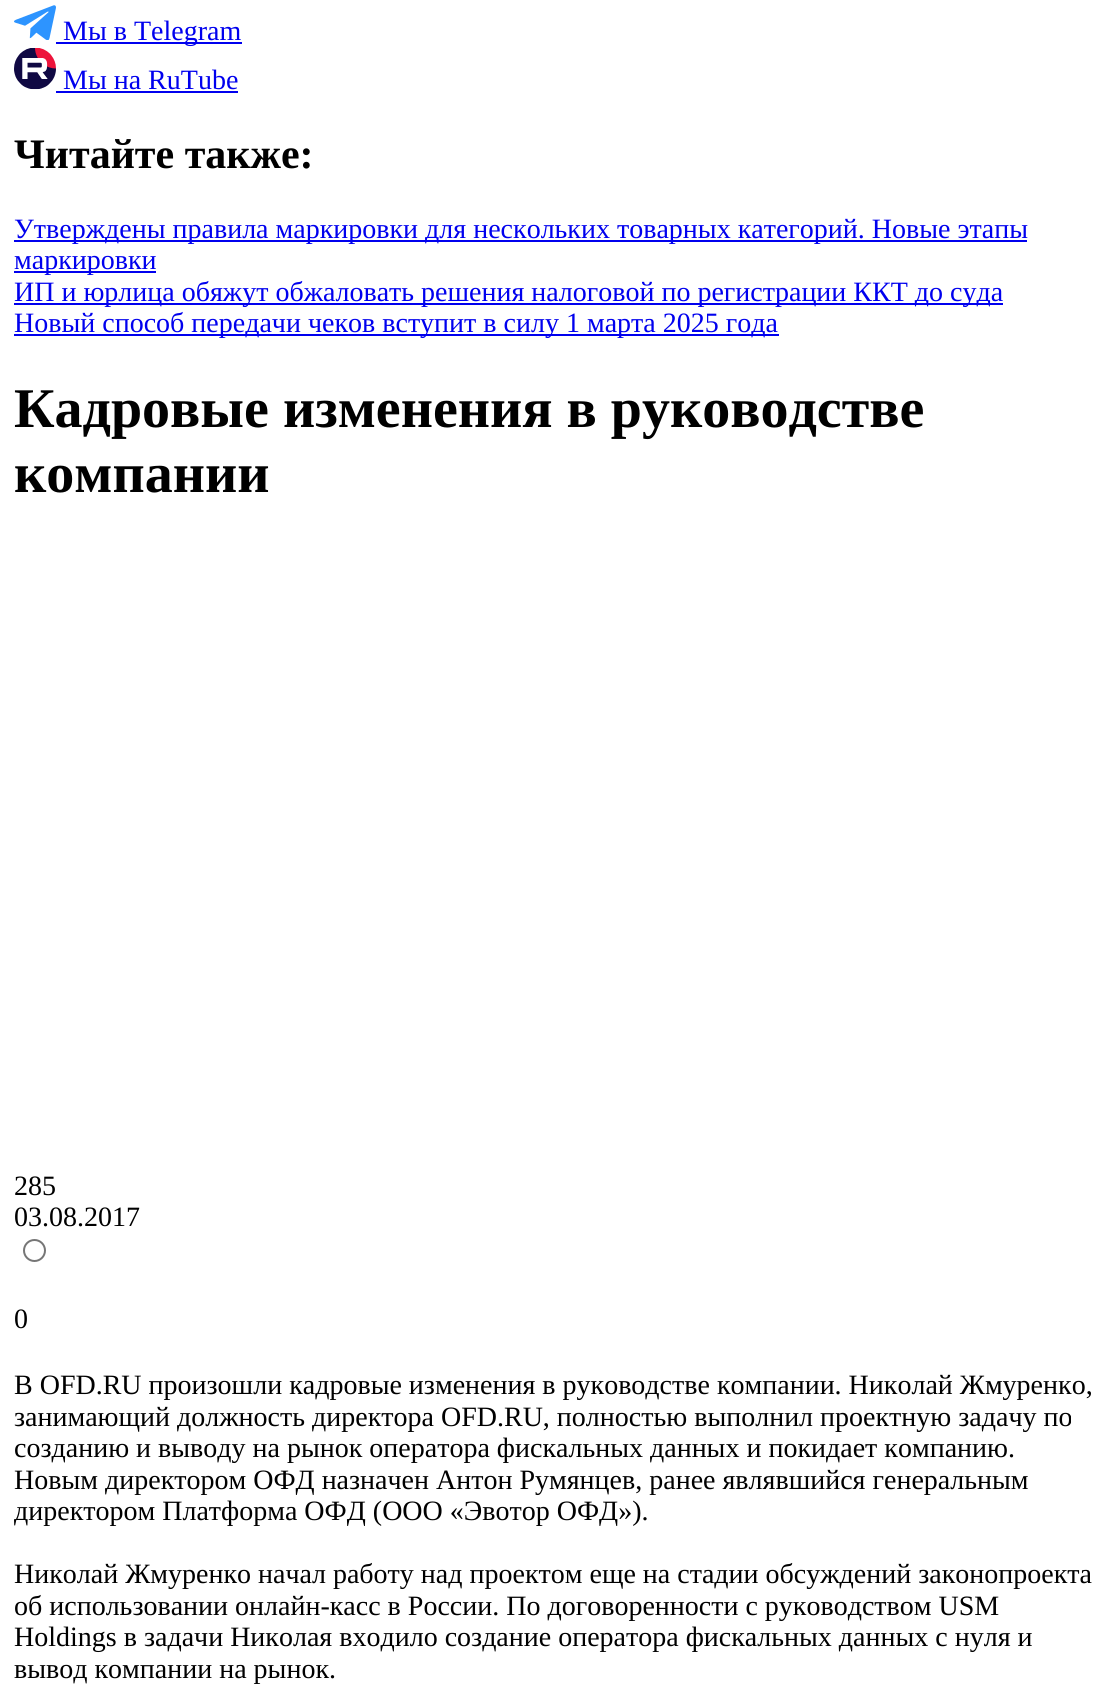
import math
import cairo

surface = cairo.ImageSurface(cairo.FORMAT_RGB24, 1110, 1700)
ctx = cairo.Context(surface)
options = cairo.FontOptions()
options.set_hint_metrics(cairo.HINT_METRICS_OFF)
options.set_hint_style(cairo.HINT_STYLE_NONE)
ctx.set_font_options(options)
ctx.set_miter_limit(4)


def set_color(code):
    ctx.set_source_rgb(*(v / 255 for v in bytes.fromhex(code[-6:])))


def draw_text(x, y, s, family, size, color, bold=False, italic=False):
    ctx.select_font_face(family, cairo.FONT_SLANT_ITALIC if italic else cairo.FONT_SLANT_NORMAL, cairo.FONT_WEIGHT_BOLD if bold else cairo.FONT_WEIGHT_NORMAL)
    ctx.set_font_size(size)
    set_color(color)
    ctx.move_to(x, y)
    ctx.show_text(s)


def fill_rect(x, y, w, h, color):
    set_color(color)
    ctx.rectangle(x, y, w, h)
    ctx.fill()


def draw_image(path, x, y, w, h):
    ctx.save()
    ctx.set_source_surface(cairo.ImageSurface.create_from_png(path), x, y)
    ctx.rectangle(x, y, w, h)
    ctx.fill()
    ctx.restore()


set_color("#ffffff")
ctx.paint()
draw_image("assets/img1.png", 14, 5, 42, 35)
fill_rect(56, 42, 186, 2, "#0000ee")
draw_text(63, 40, "Мы в Telegram", "Liberation Serif", 28, "#0000ee")
draw_image("assets/img2.png", 14, 48, 42, 42)
draw_text(63, 89, "Мы на RuTube", "Liberation Serif", 28, "#0000ee")
fill_rect(56, 91, 182, 2, "#0000ee")
draw_text(14, 168, "Читайте также:", "Liberation Serif", 42, "#000000", bold=True)
fill_rect(14, 240, 1013, 2, "#0000ee")
draw_text(14, 238, "Утверждены правила маркировки для нескольких товарных категорий. Новые этапы", "Liberation Serif", 28, "#0000ee")
fill_rect(14, 271, 142, 2, "#0000ee")
draw_text(14, 269, "маркировки", "Liberation Serif", 28, "#0000ee")
fill_rect(14, 303, 989, 2, "#0000ee")
draw_text(14, 301, "ИП и юрлица обяжут обжаловать решения налоговой по регистрации ККТ до суда", "Liberation Serif", 28, "#0000ee")
fill_rect(14, 334, 765, 2, "#0000ee")
draw_text(14, 332, "Новый способ передачи чеков вступит в силу 1 марта 2025 года", "Liberation Serif", 28, "#0000ee")
draw_text(14, 427, "Кадровые изменения в руководстве", "Liberation Serif", 56, "#000000", bold=True)
draw_text(14, 492, "компании", "Liberation Serif", 56, "#000000", bold=True)
draw_text(14, 1195, "285", "Liberation Serif", 28, "#000000")
draw_text(14, 1226, "03.08.2017", "Liberation Serif", 28, "#000000")
ctx.new_path()
ctx.arc(34.5, 1250.5, 10.5, 0, 2 * math.pi)
set_color("#767676")
ctx.stroke()
draw_text(14, 1328, "0", "Liberation Serif", 28, "#000000")
draw_text(14, 1394, "В OFD.RU произошли кадровые изменения в руководстве компании. Николай Жмуренко,", "Liberation Serif", 28, "#000000")
draw_text(14, 1426, "занимающий должность директора OFD.RU, полностью выполнил проектную задачу по", "Liberation Serif", 28, "#000000")
draw_text(14, 1457, "созданию и выводу на рынок оператора фискальных данных и покидает компанию.", "Liberation Serif", 28, "#000000")
draw_text(14, 1489, "Новым директором ОФД назначен Антон Румянцев, ранее являвшийся генеральным", "Liberation Serif", 28, "#000000")
draw_text(14, 1520, "директором Платформа ОФД (ООО «Эвотор ОФД»).", "Liberation Serif", 28, "#000000")
draw_text(14, 1583, "Николай Жмуренко начал работу над проектом еще на стадии обсуждений законопроекта", "Liberation Serif", 28, "#000000")
draw_text(14, 1615, "об использовании онлайн-касс в России. По договоренности с руководством USM", "Liberation Serif", 28, "#000000")
draw_text(14, 1646, "Holdings в задачи Николая входило создание оператора фискальных данных с нуля и", "Liberation Serif", 28, "#000000")
draw_text(14, 1678, "вывод компании на рынок.", "Liberation Serif", 28, "#000000")
surface.write_to_png("output.png")
